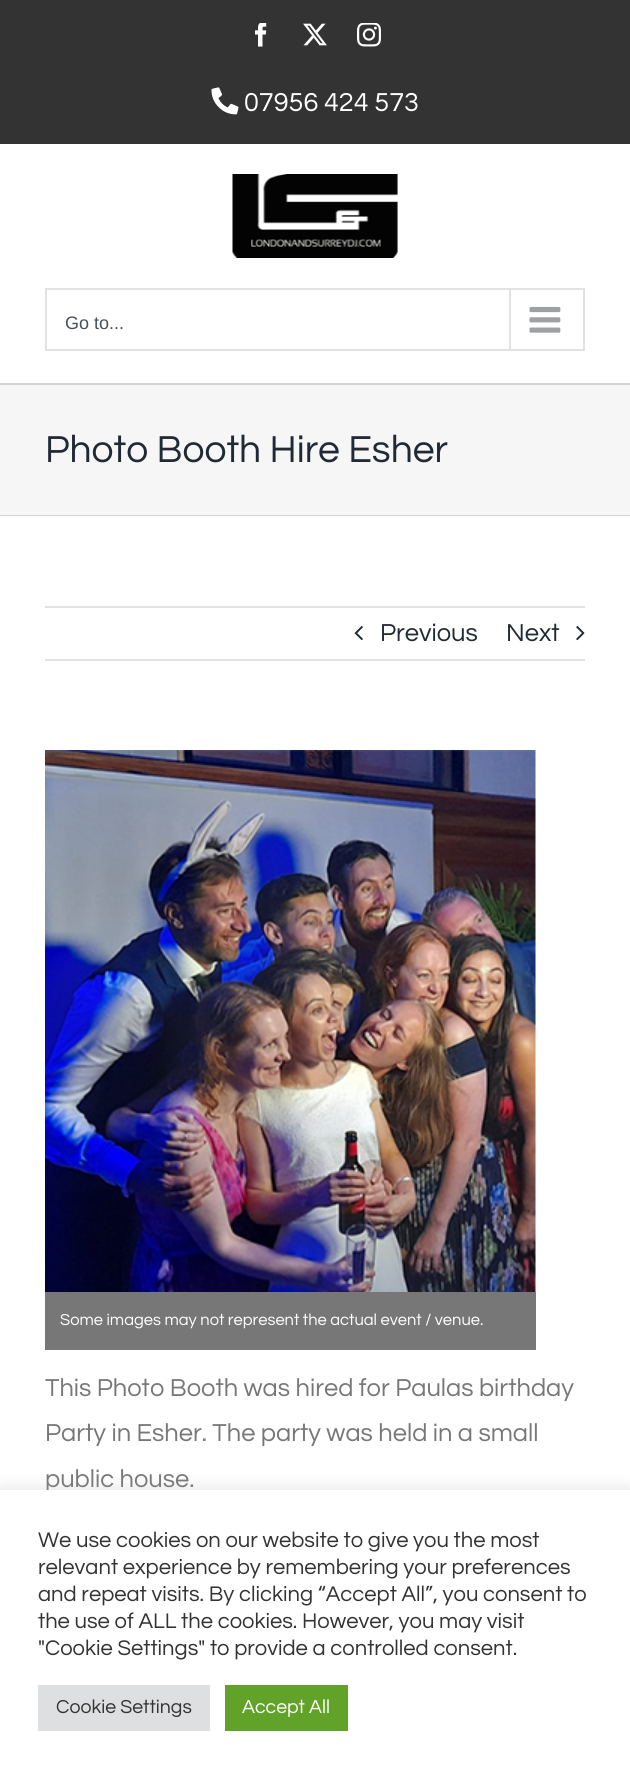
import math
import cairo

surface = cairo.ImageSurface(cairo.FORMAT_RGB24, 630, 1775)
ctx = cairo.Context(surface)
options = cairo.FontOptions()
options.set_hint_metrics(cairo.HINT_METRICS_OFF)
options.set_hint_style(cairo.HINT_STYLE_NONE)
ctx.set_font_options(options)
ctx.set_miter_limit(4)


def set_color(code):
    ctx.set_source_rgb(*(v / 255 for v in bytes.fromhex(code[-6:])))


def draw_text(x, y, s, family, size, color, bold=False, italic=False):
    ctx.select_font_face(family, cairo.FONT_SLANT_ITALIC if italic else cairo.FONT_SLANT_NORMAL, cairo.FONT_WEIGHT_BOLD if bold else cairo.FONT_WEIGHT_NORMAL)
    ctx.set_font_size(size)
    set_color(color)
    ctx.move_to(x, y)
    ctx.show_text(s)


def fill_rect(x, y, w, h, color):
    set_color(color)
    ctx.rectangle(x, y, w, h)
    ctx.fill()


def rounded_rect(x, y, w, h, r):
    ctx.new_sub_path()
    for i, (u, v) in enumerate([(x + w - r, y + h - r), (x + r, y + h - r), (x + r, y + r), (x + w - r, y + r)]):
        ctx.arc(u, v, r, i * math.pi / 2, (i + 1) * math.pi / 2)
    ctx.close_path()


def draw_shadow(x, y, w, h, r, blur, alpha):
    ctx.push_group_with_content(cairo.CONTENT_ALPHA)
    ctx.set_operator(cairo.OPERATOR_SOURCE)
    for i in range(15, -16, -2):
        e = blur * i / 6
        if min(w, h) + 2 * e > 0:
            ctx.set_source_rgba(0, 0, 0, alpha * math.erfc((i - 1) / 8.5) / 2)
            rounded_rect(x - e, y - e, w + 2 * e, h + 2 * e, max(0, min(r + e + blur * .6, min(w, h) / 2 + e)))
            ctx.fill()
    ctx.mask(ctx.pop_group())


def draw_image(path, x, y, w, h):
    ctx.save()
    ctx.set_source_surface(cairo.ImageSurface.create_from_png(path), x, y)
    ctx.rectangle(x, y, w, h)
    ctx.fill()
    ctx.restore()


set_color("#ffffff")
ctx.paint()
fill_rect(0, 0, 630, 144, "#333333")
draw_image("assets/img1.png", 255, 23, 12, 24)
draw_image("assets/img2.png", 303, 23, 24, 23)
draw_image("assets/img3.png", 357, 23, 24, 24)
draw_image("assets/img4.png", 211, 87, 28, 28)
draw_text(244, 111, "07956 424 573", "Questrial", 27, "#ffffff")
draw_image("assets/img5.png", 232, 174, 166, 84)
ctx.rectangle(46, 289, 538, 61)
set_color("#e2e2e2")
ctx.stroke()
draw_text(65, 329, "Go to...", "Liberation Sans", 18, "#4a4e57")
fill_rect(509, 290, 2, 60, "#e2e2e2")
draw_image("assets/img6.png", 529, 306, 32, 27)
fill_rect(0, 385, 630, 130, "#f6f6f6")
fill_rect(0, 383, 630, 2, "#d2d3d4")
fill_rect(0, 515, 630, 1, "#d2d3d4")
draw_text(45, 462, "Photo Booth Hire Esher", "Questrial", 39, "#212934")
fill_rect(45, 606, 540, 2, "#e2e2e2")
fill_rect(45, 659, 540, 2, "#e2e2e2")
draw_image("assets/img7.png", 354, 626, 9, 15)
draw_text(380, 641, "Previous", "Questrial", 25.5, "#212934")
draw_text(506, 641, "Next", "Questrial", 25.5, "#212934")
draw_image("assets/img8.png", 576, 626, 9, 15)
draw_image("assets/img9.png", 45, 750, 491, 542)
fill_rect(45, 1292, 491, 58, "#777777")
draw_text(60, 1325, "Some images may not represent the actual event / venue.", "Questrial", 16.5, "#ffffff")
draw_text(45, 1396, "This Photo Booth was hired for Paulas birthday", "Questrial", 25.5, "#777777")
draw_text(45, 1441, "Party in Esher. The party was held in a small", "Questrial", 25.5, "#777777")
draw_text(45, 1487, "public house.", "Questrial", 25.5, "#777777")
set_color("#acabab")
draw_shadow(0, 1488, 630, 287, 0, 7.5, 0.3)
fill_rect(0, 1490, 630, 285, "#ffffff")
draw_text(38, 1547, "We use cookies on our website to give you the most", "Questrial", 22, "#333333")
draw_text(38, 1574, "relevant experience by remembering your preferences", "Questrial", 22, "#333333")
draw_text(38, 1601, "and repeat visits. By clicking “Accept All”, you consent to", "Questrial", 22, "#333333")
draw_text(38, 1628, "the use of ALL the cookies. However, you may visit", "Questrial", 22, "#333333")
draw_text(38, 1655, "\"Cookie Settings\" to provide a controlled consent.", "Questrial", 22, "#333333")
fill_rect(38, 1685, 172, 46, "#dedfe0")
draw_text(56, 1713, "Cookie Settings", "Questrial", 19.5, "#333333")
fill_rect(225, 1685, 123, 46, "#61a229")
draw_text(242, 1713, "Accept All", "Questrial", 19.5, "#ffffff")
surface.write_to_png("output.png")
